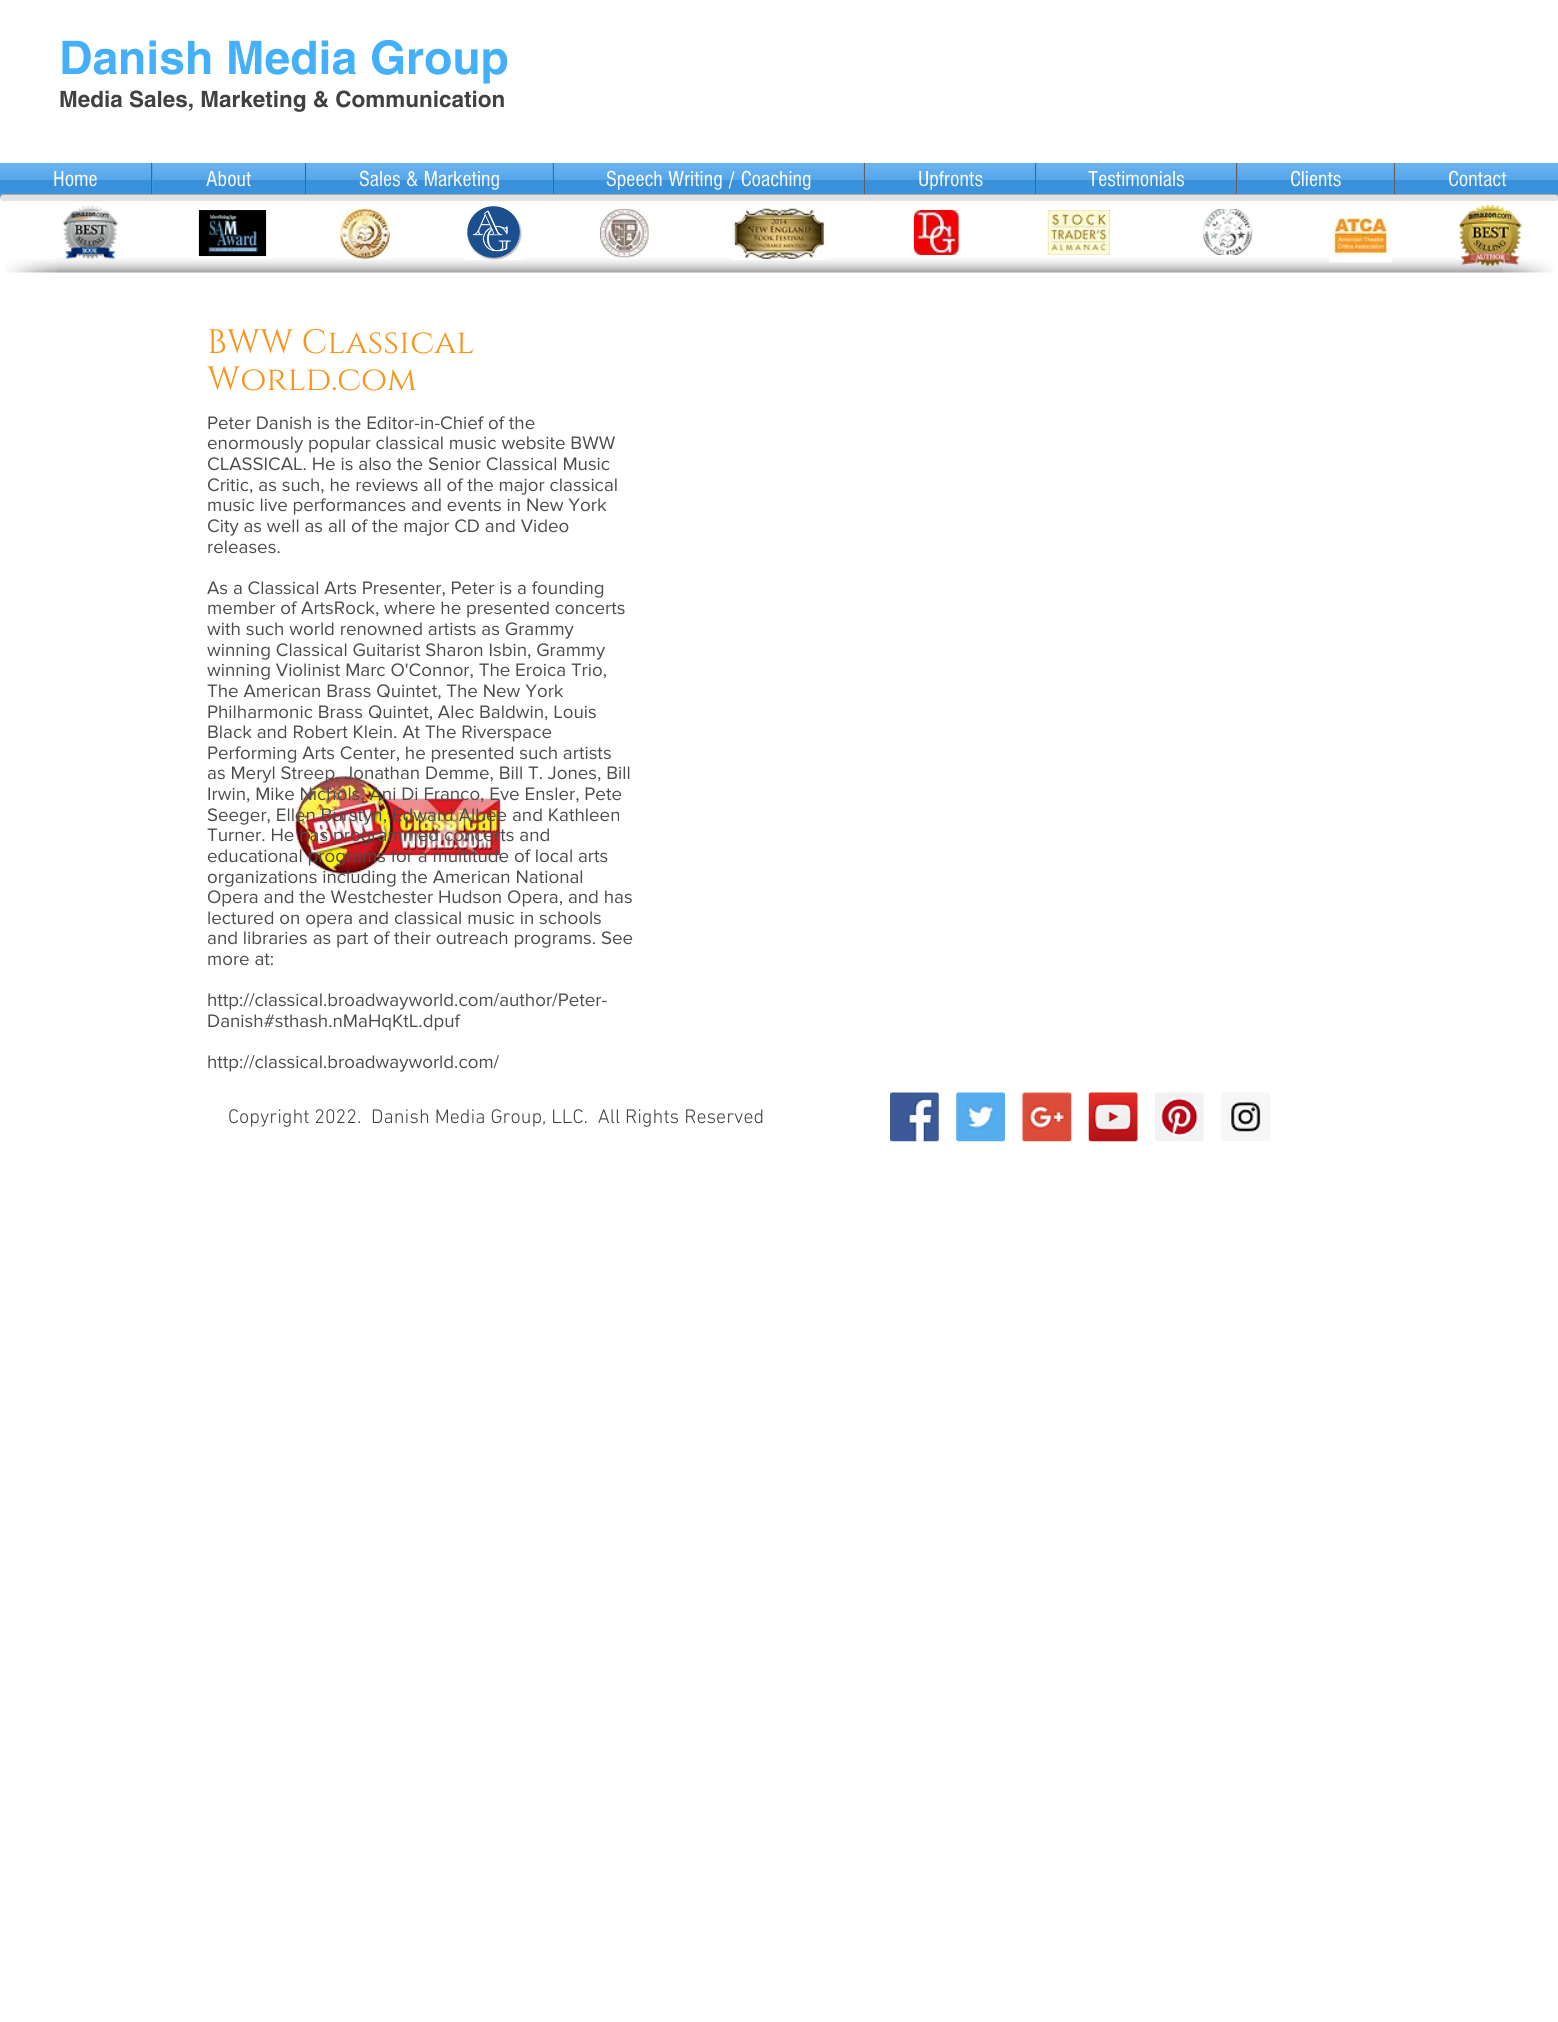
import math
import cairo

surface = cairo.ImageSurface(cairo.FORMAT_RGB24, 1558, 2022)
ctx = cairo.Context(surface)
options = cairo.FontOptions()
options.set_hint_metrics(cairo.HINT_METRICS_OFF)
options.set_hint_style(cairo.HINT_STYLE_NONE)
ctx.set_font_options(options)
ctx.set_miter_limit(4)


def set_color(code):
    ctx.set_source_rgb(*(v / 255 for v in bytes.fromhex(code[-6:])))


def draw_text(x, y, s, family, size, color, bold=False, italic=False):
    ctx.select_font_face(family, cairo.FONT_SLANT_ITALIC if italic else cairo.FONT_SLANT_NORMAL, cairo.FONT_WEIGHT_BOLD if bold else cairo.FONT_WEIGHT_NORMAL)
    ctx.set_font_size(size)
    set_color(color)
    ctx.move_to(x, y)
    ctx.show_text(s)


def fill_rect(x, y, w, h, color):
    set_color(color)
    ctx.rectangle(x, y, w, h)
    ctx.fill()


def rounded_rect(x, y, w, h, r):
    ctx.new_sub_path()
    for i, (u, v) in enumerate([(x + w - r, y + h - r), (x + r, y + h - r), (x + r, y + r), (x + w - r, y + r)]):
        ctx.arc(u, v, r, i * math.pi / 2, (i + 1) * math.pi / 2)
    ctx.close_path()


def draw_image(path, x, y, w, h):
    ctx.save()
    ctx.set_source_surface(cairo.ImageSurface.create_from_png(path), x, y)
    ctx.rectangle(x, y, w, h)
    ctx.fill()
    ctx.restore()


set_color("#ffffff")
ctx.paint()
draw_text(59, 74, "Danish Media Group", "helvetica", 46.25, "#43b0f9", bold=True)
draw_text(59, 107, "Media Sales, Marketing & Communication", "helvetica", 22.5, "#414141", bold=True)
fill_rect(0, 163, 151, 35, "#3d9be9")
draw_text(53, 186, "Home", "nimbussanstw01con", 22.5, "#ffffff")
draw_image("assets/img1.png", 0, 163, 151, 34)
fill_rect(152, 163, 153, 31, "#3d9be9")
fill_rect(151, 163, 1, 35, "#605e5e")
draw_text(206, 186, "About", "nimbussanstw01con", 22.5, "#ffffff")
draw_image("assets/img2.png", 152, 163, 153, 31)
fill_rect(306, 163, 247, 31, "#3d9be9")
fill_rect(305, 163, 1, 35, "#605e5e")
draw_text(359, 186, "Sales & Marketing", "nimbussanstw01con", 22.5, "#ffffff")
draw_image("assets/img3.png", 306, 163, 247, 31)
fill_rect(554, 163, 310, 31, "#3d9be9")
fill_rect(553, 163, 1, 35, "#605e5e")
draw_text(606, 186, "Speech Writing / Coaching", "nimbussanstw01con", 22.5, "#ffffff")
draw_image("assets/img4.png", 553, 163, 311, 31)
fill_rect(865, 163, 170, 31, "#3d9be9")
fill_rect(864, 163, 1, 35, "#605e5e")
draw_text(918, 186, "Upfronts", "nimbussanstw01con", 22.5, "#ffffff")
draw_image("assets/img5.png", 865, 163, 170, 31)
fill_rect(1036, 163, 200, 31, "#3d9be9")
fill_rect(1035, 163, 1, 35, "#605e5e")
draw_text(1088, 186, "Testimonials", "nimbussanstw01con", 22.5, "#ffffff")
draw_image("assets/img6.png", 1036, 163, 200, 31)
fill_rect(1237, 163, 157, 31, "#3d9be9")
fill_rect(1236, 163, 1, 35, "#605e5e")
draw_text(1290, 186, "Clients", "nimbussanstw01con", 22.5, "#ffffff")
draw_image("assets/img7.png", 1237, 163, 157, 31)
fill_rect(1395, 163, 163, 32, "#3d9be9")
fill_rect(1394, 163, 1, 35, "#605e5e")
draw_text(1448, 186, "Contact", "nimbussanstw01con", 22.5, "#ffffff")
draw_image("assets/img8.png", 1395, 163, 163, 32)
set_color("#e3e2e2")
rounded_rect(0, 194, 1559, 7, 3.5)
ctx.fill()
ctx.set_source_rgba(0, 0, 0, 0.25)
ctx.new_path()
ctx.move_to(4, 195)
ctx.line_to(1555, 195)
ctx.curve_to(1557, 195, 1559, 197, 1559, 199)
ctx.curve_to(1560, 197, 1558, 194, 1556, 194)
ctx.line_to(4, 194)
ctx.curve_to(1, 194, -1, 197, 0, 199)
ctx.curve_to(0, 197, 1, 195, 4, 195)
ctx.close_path()
ctx.fill()
draw_image("assets/img9.png", 62, 205, 56, 54)
draw_image("assets/img10.png", 198, 210, 69, 47)
draw_image("assets/img20.png", 56, 258, 1447, 15)
draw_image("assets/img11.png", 340, 208, 50, 51)
draw_image("assets/img12.png", 465, 206, 57, 54)
draw_image("assets/img13.png", 600, 208, 49, 50)
draw_image("assets/img14.png", 733, 208, 93, 52)
draw_image("assets/img15.png", 913, 210, 46, 45)
draw_image("assets/img16.png", 1047, 210, 63, 45)
draw_image("assets/img17.png", 1202, 208, 51, 47)
draw_image("assets/img18.png", 1329, 217, 64, 46)
draw_image("assets/img22.png", 1502, 259, 52, 14)
draw_image("assets/img19.png", 1458, 204, 64, 63)
draw_image("assets/img21.png", 5, 259, 52, 14)
draw_text(207, 353, "BWW Classical", "Cinzel", 33.75, "#f5951c")
draw_text(207, 390, "World.com", "Cinzel", 33.75, "#f5951c")
draw_text(207, 429, "Peter Danish is the Editor-in-Chief of the", "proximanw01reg", 18.75, "#4c4c4c")
draw_text(207, 449, "enormously popular classical music website BWW", "proximanw01reg", 18.75, "#4c4c4c")
draw_text(207, 470, "CLASSICAL. He is also the Senior Classical Music", "proximanw01reg", 18.75, "#4c4c4c")
draw_text(207, 491, "Critic, as such, he reviews all of the major classical", "proximanw01reg", 18.75, "#4c4c4c")
draw_text(207, 511, "music live performances and events in New York", "proximanw01reg", 18.75, "#4c4c4c")
draw_text(207, 532, "City as well as all of the major CD and Video", "proximanw01reg", 18.75, "#4c4c4c")
draw_text(207, 553, "releases.", "proximanw01reg", 18.75, "#4c4c4c")
draw_text(207, 594, "As a Classical Arts Presenter, Peter is a founding", "proximanw01reg", 18.75, "#4c4c4c")
draw_text(207, 614, "member of ArtsRock, where he presented concerts", "proximanw01reg", 18.75, "#4c4c4c")
draw_text(207, 635, "with such world renowned artists as Grammy", "proximanw01reg", 18.75, "#4c4c4c")
draw_text(207, 656, "winning Classical Guitarist Sharon Isbin, Grammy", "proximanw01reg", 18.75, "#4c4c4c")
draw_text(207, 676, "winning Violinist Marc O'Connor, The Eroica Trio,", "proximanw01reg", 18.75, "#4c4c4c")
draw_text(207, 697, "The American Brass Quintet, The New York", "proximanw01reg", 18.75, "#4c4c4c")
draw_text(207, 718, "Philharmonic Brass Quintet, Alec Baldwin, Louis", "proximanw01reg", 18.75, "#4c4c4c")
draw_text(207, 738, "Black and Robert Klein. At The Riverspace", "proximanw01reg", 18.75, "#4c4c4c")
draw_text(207, 759, "Performing Arts Center, he presented such artists", "proximanw01reg", 18.75, "#4c4c4c")
draw_image("assets/img23.png", 290, 774, 212, 102)
draw_text(207, 779, "as Meryl Streep, Jonathan Demme, Bill T. Jones, Bill", "proximanw01reg", 18.75, "#4c4c4c")
draw_text(207, 800, "Irwin, Mike Nichols, Ani Di Franco, Eve Ensler, Pete", "proximanw01reg", 18.75, "#4c4c4c")
draw_text(207, 821, "Seeger, Ellen Burstyn, Edward Albee and Kathleen", "proximanw01reg", 18.75, "#4c4c4c")
draw_text(207, 841, "Turner. He has programmed concerts and", "proximanw01reg", 18.75, "#4c4c4c")
draw_text(207, 862, "educational programs for a multitude of local arts", "proximanw01reg", 18.75, "#4c4c4c")
draw_text(207, 883, "organizations including the American National", "proximanw01reg", 18.75, "#4c4c4c")
draw_text(207, 903, "Opera and the Westchester Hudson Opera, and has", "proximanw01reg", 18.75, "#4c4c4c")
draw_text(207, 924, "lectured on opera and classical music in schools", "proximanw01reg", 18.75, "#4c4c4c")
draw_text(207, 944, "and libraries as part of their outreach programs. See", "proximanw01reg", 18.75, "#4c4c4c")
draw_text(207, 965, "more at:", "proximanw01reg", 18.75, "#4c4c4c")
draw_text(207, 1006, "http://classical.broadwayworld.com/author/Peter-", "proximanw01reg", 18.75, "#4c4c4c")
draw_text(207, 1027, "Danish#sthash.nMaHqKtL.dpuf", "proximanw01reg", 18.75, "#4c4c4c")
draw_text(207, 1068, "http://classical.broadwayworld.com/", "proximanw01reg", 18.75, "#4c4c4c")
draw_text(228, 1123, "Copyright 2022.  Danish Media Group, LLC.  All Rights Reserved", "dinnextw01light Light", 20, "#414141")
draw_image("assets/img24.png", 890, 1092, 49, 50)
draw_image("assets/img25.png", 956, 1092, 49, 50)
draw_image("assets/img26.png", 1022, 1092, 50, 50)
draw_image("assets/img27.png", 1088, 1092, 50, 50)
draw_image("assets/img28.png", 1155, 1092, 49, 50)
draw_image("assets/img29.png", 1221, 1092, 49, 49)
surface.write_to_png("output.png")
